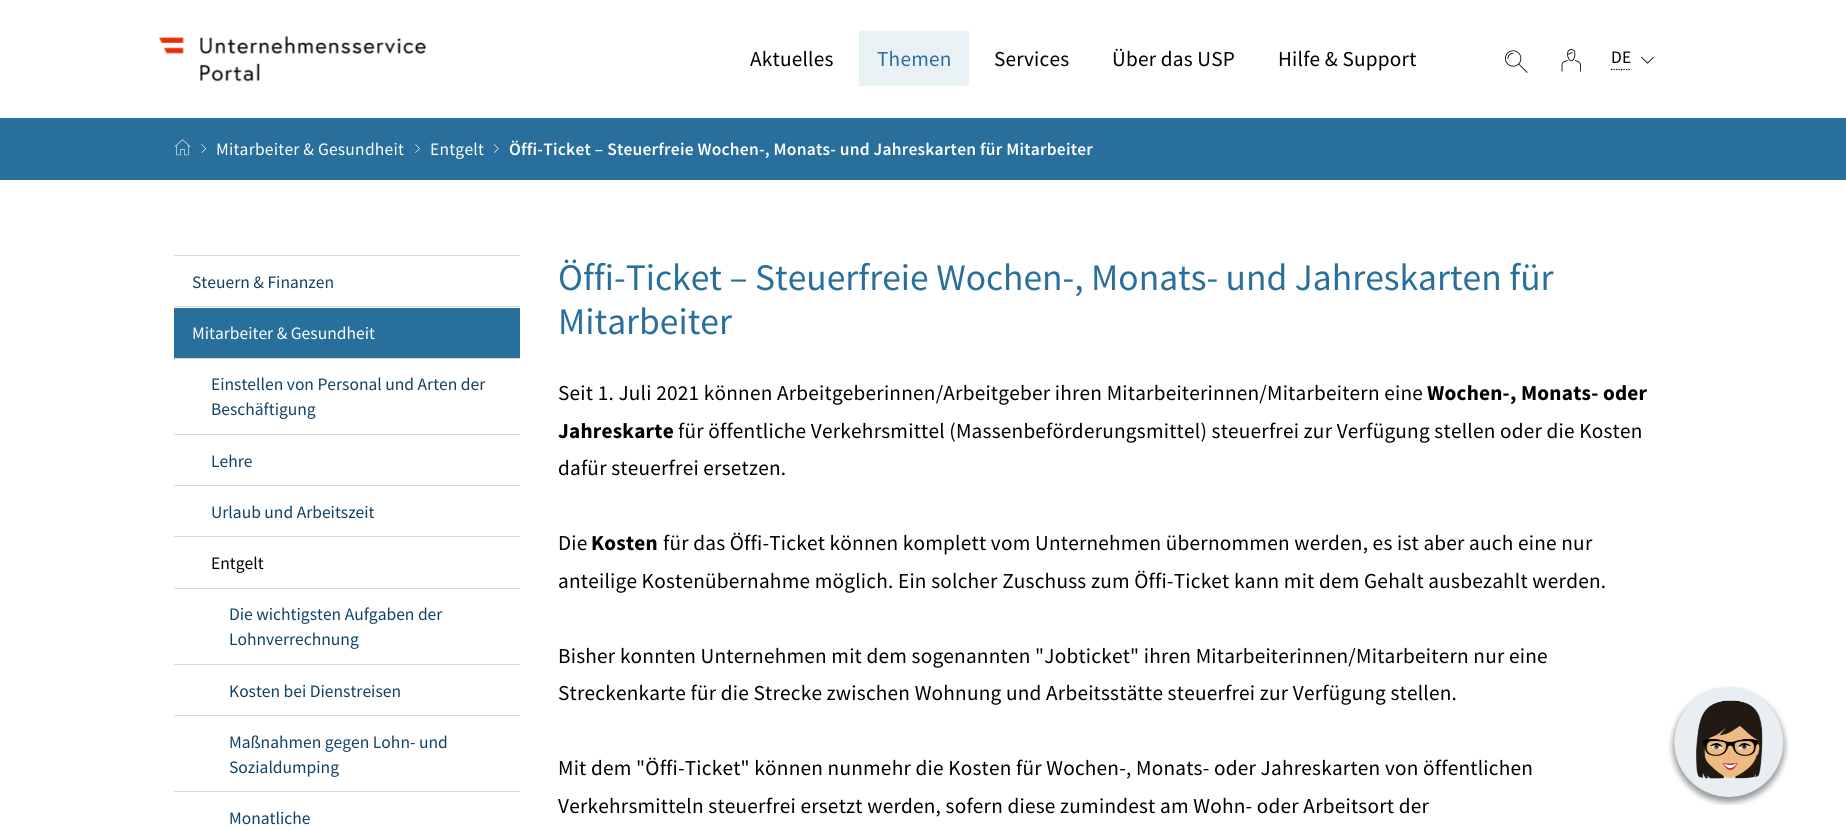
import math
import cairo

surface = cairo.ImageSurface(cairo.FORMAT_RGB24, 1846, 830)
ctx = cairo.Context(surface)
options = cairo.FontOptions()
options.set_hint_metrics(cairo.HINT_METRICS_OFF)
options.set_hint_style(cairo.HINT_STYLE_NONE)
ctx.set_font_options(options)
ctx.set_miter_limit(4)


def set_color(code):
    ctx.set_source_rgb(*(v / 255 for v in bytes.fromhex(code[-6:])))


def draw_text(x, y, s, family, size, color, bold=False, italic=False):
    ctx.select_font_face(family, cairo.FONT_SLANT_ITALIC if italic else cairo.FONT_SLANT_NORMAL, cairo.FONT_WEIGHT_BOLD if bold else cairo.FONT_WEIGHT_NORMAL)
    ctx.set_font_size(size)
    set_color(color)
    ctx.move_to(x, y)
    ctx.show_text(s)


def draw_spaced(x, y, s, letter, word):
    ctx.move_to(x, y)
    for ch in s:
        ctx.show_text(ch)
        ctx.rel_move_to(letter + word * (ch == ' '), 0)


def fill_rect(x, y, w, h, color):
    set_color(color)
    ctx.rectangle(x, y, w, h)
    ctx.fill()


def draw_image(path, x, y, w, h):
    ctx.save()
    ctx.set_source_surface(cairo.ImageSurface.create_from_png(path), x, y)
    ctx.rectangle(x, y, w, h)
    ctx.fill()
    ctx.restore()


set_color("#ffffff")
ctx.paint()
draw_image("assets/img1.png", 158, 36, 268, 46)
ctx.select_font_face("Source Sans Pro")
ctx.set_font_size(21.25)
set_color("#000000")
draw_spaced(750, 66, "Aktuelles", 0.22, 0)
fill_rect(859, 31, 110, 55, "#eaf1f5")
set_color("#286f9c")
draw_spaced(877, 66, "Themen", 0.22, 0)
set_color("#000000")
draw_spaced(994, 66, "Services", 0.22, 0)
draw_spaced(1112, 66, "Über das USP", 0.22, 0)
draw_spaced(1278, 66, "Hilfe & Support", 0.22, 0)
draw_image("assets/img2.png", 1505, 50, 23, 23)
draw_image("assets/img3.png", 1561, 49, 20, 23)
ctx.set_font_size(17.5)
draw_spaced(1611, 63, "DE", 0.22, 0)
ctx.new_path()
ctx.move_to(1611, 69.5)
ctx.line_to(1631, 69.5)
ctx.set_line_width(1.2)
ctx.set_dash([1.25, 1.25])
ctx.stroke()
draw_image("assets/img4.png", 1641, 57, 13, 7)
fill_rect(0, 118, 1846, 62, "#286f9c")
draw_image("assets/img5.png", 174, 139, 17, 17)
draw_image("assets/img6.png", 201, 144, 6, 9)
set_color("#ffffff")
draw_spaced(216, 155, "Mitarbeiter & Gesundheit", 0.22, 0)
draw_image("assets/img7.png", 415, 144, 5, 9)
draw_spaced(430, 155, "Entgelt", 0.22, 0)
draw_image("assets/img8.png", 493, 144, 6, 9)
ctx.select_font_face("Source Sans Pro SemiBold")
draw_spaced(509, 155, "Öffi-Ticket – Steuerfreie Wochen-, Monats- und Jahreskarten für Mitarbeiter", 0.22, 0)
fill_rect(174, 255, 346, 1, "#d1dbde")
fill_rect(174, 306, 346, 1, "#d1dbde")
draw_text(192, 288, "Steuern & Finanzen", "Source Sans Pro", 17.5, "#104166")
fill_rect(174, 308, 346, 50, "#286f9c")
fill_rect(174, 358, 346, 1, "#d1dbde")
draw_text(192, 339, "Mitarbeiter & Gesundheit", "Source Sans Pro", 17.5, "#ffffff")
fill_rect(174, 434, 346, 1, "#d1dbde")
draw_text(211, 390, "Einstellen von Personal und Arten der", "Source Sans Pro", 17.5, "#104166")
draw_text(211, 415, "Beschäftigung", "Source Sans Pro", 17.5, "#104166")
fill_rect(174, 485, 346, 1, "#d1dbde")
draw_text(211, 467, "Lehre", "Source Sans Pro", 17.5, "#104166")
fill_rect(174, 536, 346, 1, "#d1dbde")
draw_text(211, 518, "Urlaub und Arbeitszeit", "Source Sans Pro", 17.5, "#104166")
fill_rect(174, 588, 346, 1, "#d1dbde")
draw_text(211, 569, "Entgelt", "Source Sans Pro", 17.5, "#000000")
fill_rect(174, 664, 346, 1, "#d1dbde")
draw_text(229, 620, "Die wichtigsten Aufgaben der", "Source Sans Pro", 17.5, "#104166")
draw_text(229, 645, "Lohnverrechnung", "Source Sans Pro", 17.5, "#104166")
fill_rect(174, 715, 346, 1, "#d1dbde")
draw_text(229, 697, "Kosten bei Dienstreisen", "Source Sans Pro", 17.5, "#104166")
fill_rect(174, 791, 346, 1, "#d1dbde")
draw_text(229, 748, "Maßnahmen gegen Lohn- und", "Source Sans Pro", 17.5, "#104166")
draw_text(229, 773, "Sozialdumping", "Source Sans Pro", 17.5, "#104166")
draw_text(229, 824, "Monatliche", "Source Sans Pro", 17.5, "#104166")
draw_text(558, 290, "Öffi-Ticket – Steuerfreie Wochen-, Monats- und Jahreskarten für", "Source Sans Pro", 37.5, "#286f9c")
draw_text(558, 334, "Mitarbeiter", "Source Sans Pro", 37.5, "#286f9c")
ctx.set_font_size(21.25)
set_color("#000000")
draw_spaced(558, 400, "Seit 1. Juli 2021 können Arbeitgeberinnen/Arbeitgeber ihren Mitarbeiterinnen/Mitarbeitern eine", 0.22, 0)
ctx.select_font_face("Source Sans Pro", cairo.FONT_SLANT_NORMAL, cairo.FONT_WEIGHT_BOLD)
draw_spaced(1427, 400, "Wochen-, Monats- oder", 0.22, 0)
draw_spaced(558, 438, "Jahreskarte", 0.22, 0)
ctx.select_font_face("Source Sans Pro")
draw_spaced(678, 438, "für öffentliche Verkehrsmittel (Massenbeförderungsmittel) steuerfrei zur Verfügung stellen oder die Kosten", 0.22, 0)
draw_spaced(558, 475, "dafür steuerfrei ersetzen.", 0.22, 0)
draw_spaced(558, 550, "Die", 0.22, 0)
ctx.select_font_face("Source Sans Pro", cairo.FONT_SLANT_NORMAL, cairo.FONT_WEIGHT_BOLD)
draw_spaced(591, 550, "Kosten", 0.22, 0)
ctx.select_font_face("Source Sans Pro")
draw_spaced(663, 550, "für das Öffi-Ticket können komplett vom Unternehmen übernommen werden, es ist aber auch eine nur", 0.22, 0)
draw_spaced(558, 588, "anteilige Kostenübernahme möglich. Ein solcher Zuschuss zum Öffi-Ticket kann mit dem Gehalt ausbezahlt werden.", 0.22, 0)
draw_spaced(558, 663, "Bisher konnten Unternehmen mit dem sogenannten \"Jobticket\" ihren Mitarbeiterinnen/Mitarbeitern nur eine", 0.22, 0)
draw_spaced(558, 700, "Streckenkarte für die Strecke zwischen Wohnung und Arbeitsstätte steuerfrei zur Verfügung stellen.", 0.22, 0)
draw_spaced(558, 775, "Mit dem \"Öffi-Ticket\" können nunmehr die Kosten für Wochen-, Monats- oder Jahreskarten von öffentlichen", 0.22, 0)
draw_spaced(558, 813, "Verkehrsmitteln steuerfrei ersetzt werden, sofern diese zumindest am Wohn- oder Arbeitsort der", 0.22, 0)
draw_image("assets/img9.png", 1668, 686, 121, 119)
surface.write_to_png("output.png")
